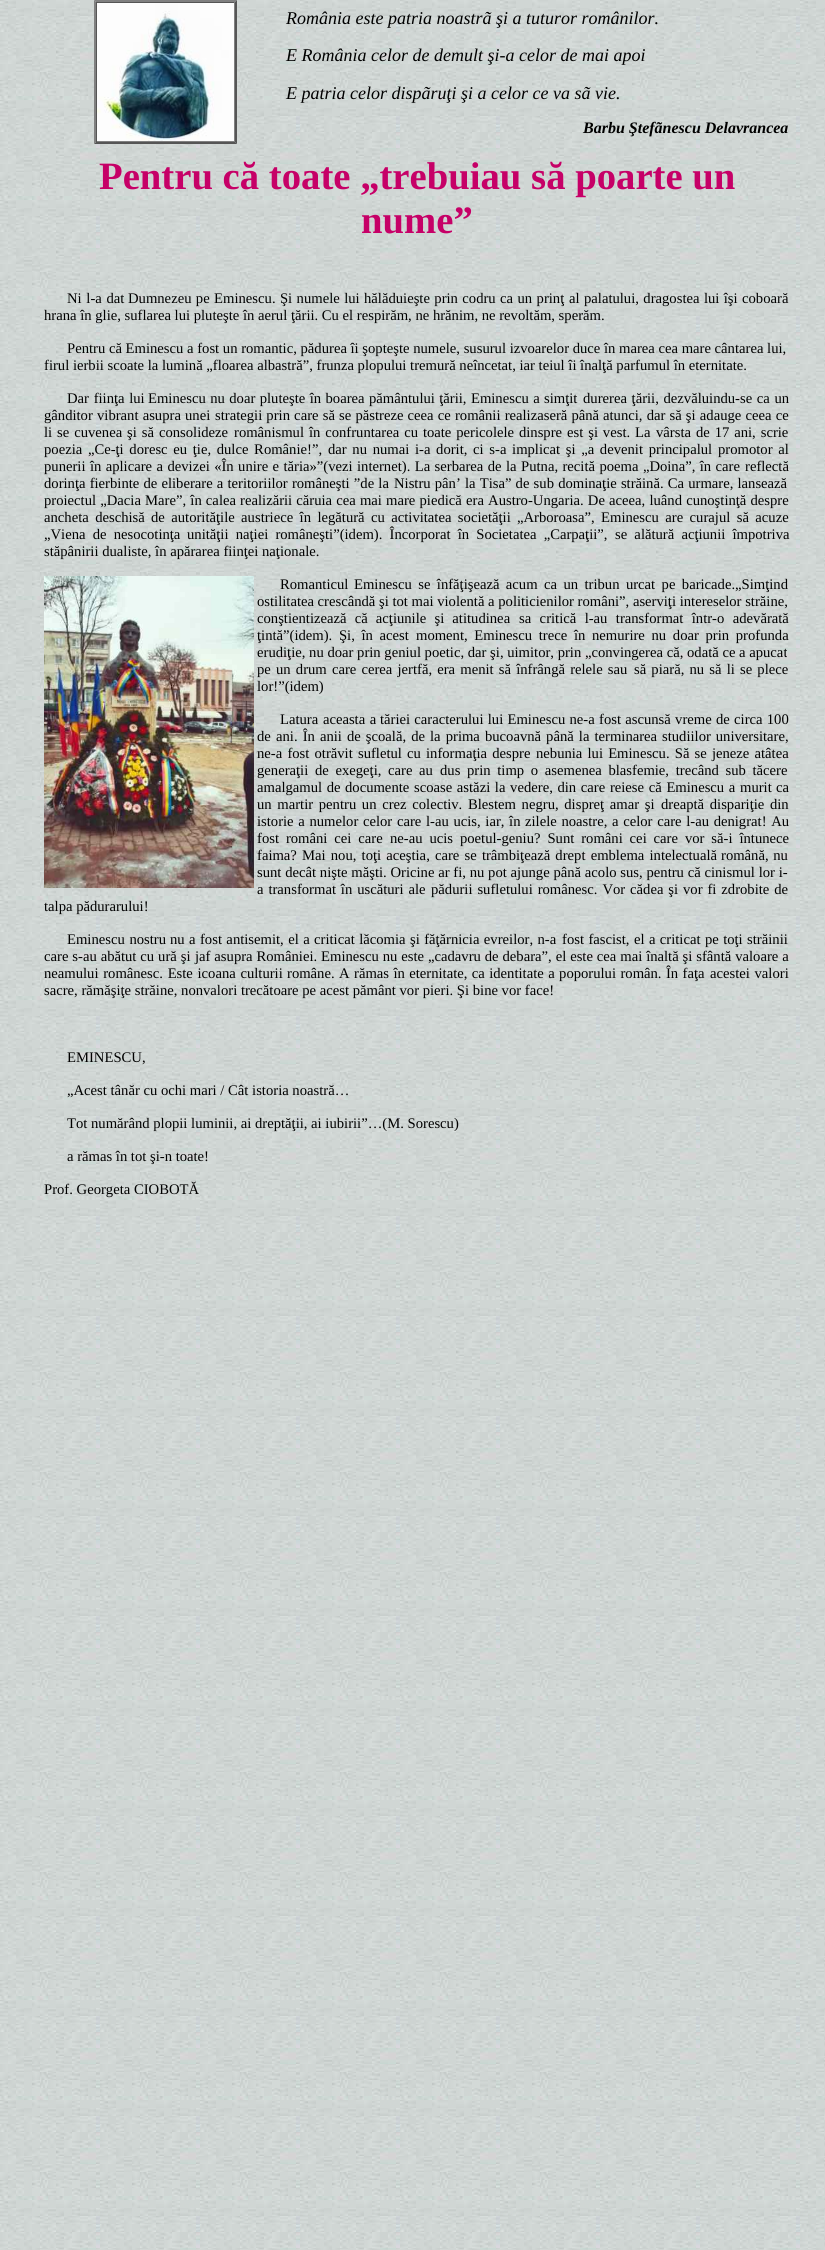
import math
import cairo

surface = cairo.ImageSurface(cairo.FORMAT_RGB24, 825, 2250)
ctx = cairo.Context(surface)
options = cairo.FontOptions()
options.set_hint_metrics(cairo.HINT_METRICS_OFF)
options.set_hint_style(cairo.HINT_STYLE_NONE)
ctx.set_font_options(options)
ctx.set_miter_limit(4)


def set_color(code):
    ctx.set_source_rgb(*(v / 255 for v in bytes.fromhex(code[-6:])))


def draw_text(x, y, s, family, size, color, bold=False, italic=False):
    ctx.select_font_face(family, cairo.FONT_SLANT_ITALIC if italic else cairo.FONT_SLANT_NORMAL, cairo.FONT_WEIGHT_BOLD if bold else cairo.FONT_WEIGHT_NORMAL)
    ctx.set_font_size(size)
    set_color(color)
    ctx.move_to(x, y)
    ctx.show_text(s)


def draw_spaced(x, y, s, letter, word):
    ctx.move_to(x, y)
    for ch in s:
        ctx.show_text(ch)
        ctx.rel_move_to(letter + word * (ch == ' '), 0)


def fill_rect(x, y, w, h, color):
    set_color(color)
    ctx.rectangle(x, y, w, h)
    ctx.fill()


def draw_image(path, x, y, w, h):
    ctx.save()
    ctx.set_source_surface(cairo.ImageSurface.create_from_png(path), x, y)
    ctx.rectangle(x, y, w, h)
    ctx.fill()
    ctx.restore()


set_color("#ffffff")
ctx.paint()
draw_image("assets/img1.png", 0, 0, 825, 2250)
set_color("#808080")
ctx.new_path()
ctx.move_to(94, 0)
ctx.line_to(237, 0)
ctx.line_to(235, 2)
ctx.line_to(96, 2)
ctx.close_path()
ctx.fill()
set_color("#555555")
ctx.new_path()
ctx.move_to(237, 0)
ctx.line_to(237, 144)
ctx.line_to(235, 142)
ctx.line_to(235, 2)
ctx.close_path()
ctx.fill()
ctx.new_path()
ctx.move_to(237, 144)
ctx.line_to(94, 144)
ctx.line_to(96, 142)
ctx.line_to(235, 142)
ctx.close_path()
ctx.fill()
set_color("#808080")
ctx.new_path()
ctx.move_to(94, 144)
ctx.line_to(94, 0)
ctx.line_to(96, 2)
ctx.line_to(96, 142)
ctx.close_path()
ctx.fill()
fill_rect(96, 2, 139, 1, "#555555")
fill_rect(234, 2, 1, 140, "#808080")
fill_rect(96, 141, 139, 1, "#808080")
fill_rect(96, 2, 1, 140, "#555555")
draw_image("assets/img2.png", 97, 3, 137, 138)
draw_text(286, 24, "România este patria noastrã şi a tuturor românilor.", "Liberation Serif", 18, "#000000", italic=True)
draw_text(286, 61, "E România celor de demult şi-a celor de mai apoi", "Liberation Serif", 18, "#000000", italic=True)
draw_text(286, 99, "E patria celor dispãruţi şi a celor ce va sã vie.", "Liberation Serif", 18, "#000000", italic=True)
draw_text(583, 133, "Barbu Ştefãnescu Delavrancea", "Liberation Serif", 16, "#000000", bold=True, italic=True)
draw_text(99, 189, "Pentru că toate „trebuiau să poarte un", "Liberation Serif", 38.7, "#c60067", bold=True)
draw_text(361, 233, "nume”", "Liberation Serif", 38.7, "#c60067", bold=True)
ctx.select_font_face("Liberation Serif")
ctx.set_font_size(14.65)
set_color("#000000")
draw_spaced(67, 303, "Ni l-a dat", 0, 1)
draw_spaced(128, 303, "Dumnezeu pe Eminescu. Şi numele lui hălăduieşte prin codru ca un prinţ", 0, 0.75)
draw_spaced(569, 303, "al palatului, dragostea lui îşi coboară", 0, 0.75)
draw_text(44, 320, "hrana în glie, suflarea lui pluteşte în aerul ţării. Cu el respirăm, ne hrănim, ne revoltăm, sperăm.", "Liberation Serif", 14.65, "#000000")
draw_text(67, 353, "Pentru că Eminescu a fost un romantic, pădurea îi şopteşte numele, susurul izvoarelor duce în marea cea mare cântarea lui,", "Liberation Serif", 14.65, "#000000")
draw_text(44, 370, "firul ierbii scoate la lumină „floarea albastră”, frunza plopului tremură neîncetat, iar teiul îi înalţă parfumul în eternitate.", "Liberation Serif", 14.65, "#000000")
draw_spaced(67, 403, "Dar fiinţa lui", 0, 1)
draw_spaced(148, 403, "Eminescu nu doar pluteşte în boarea pământului ţării, Eminescu a simţit", 0, 0.75)
draw_spaced(583, 403, "durerea ţării, dezvăluindu-se ca un", 0, 1)
draw_spaced(44, 420, "gânditor vibrant asupra unei", 0, 0.5)
draw_spaced(215, 420, "strategii prin care să se păstreze ceea ce românii realizaseră până", 0, 0.5)
draw_spaced(603, 420, "atunci, dar să şi adauge ceea ce", 0, 0.5)
draw_spaced(44, 437, "li se cuvenea şi să consolideze", 0, 1.25)
draw_spaced(234, 437, "românismul în confruntarea cu toate pericolele dinspre est şi vest. La", 0, 1.25)
draw_spaced(656, 437, "vârsta de 17 ani, scrie", 0, 1.25)
draw_spaced(44, 454, "poezia „Ce-ţi doresc eu ţie, dulce Românie!”,", 0, 2)
draw_spaced(328, 454, "dar nu numai i-a dorit, ci s-a implicat şi „a devenit principalul", 0, 2)
draw_spaced(718, 454, "promotor al", 0, 2)
draw_spaced(44, 471, "punerii în aplicare a devizei «În unire e tăria»”(vezi", 0, 0.75)
draw_spaced(357, 471, "internet). La serbarea de la Putna, recită poema „Doina”, în care", 0, 0.75)
draw_text(745, 471, "reflectă", "Liberation Serif", 14.65, "#000000")
draw_spaced(44, 488, "dorinţa fierbinte de eliberare a teritoriilor româneşti ”de la", 0, 0.5)
draw_spaced(394, 488, "Nistru pân’ la Tisa” de sub dominaţie străină. Ca urmare, lansează", 0, 0.5)
draw_spaced(44, 505, "proiectul „Dacia Mare”, în calea realizării căruia cea mai mare piedică", 0, 0.5)
draw_spaced(466, 505, "era Austro-Ungaria. De aceea, luând cunoştinţă despre", 0, 0.5)
draw_spaced(44, 522, "ancheta deschisă", 0, 2.75)
draw_spaced(151, 522, "de autorităţile austriece în legătură cu activitatea societăţii", 0, 2.75)
draw_spaced(517, 522, "„Arboroasa”, Eminescu are curajul să acuze", 0, 2.75)
draw_spaced(44, 539, "„Viena de nesocotinţa", 0, 3.5)
draw_spaced(187, 539, "unităţii naţiei româneşti”(idem). Încorporat în Societatea „Carpaţii”,", 0, 3.5)
draw_spaced(615, 539, "se alătură acţiunii împotriva", 0, 3.5)
draw_text(44, 556, "stăpânirii dualiste, în apărarea fiinţei naţionale.", "Liberation Serif", 14.65, "#000000")
draw_image("assets/img3.png", 44, 576, 210, 312)
draw_text(280, 589, "Romanticul", "Liberation Serif", 14.65, "#000000")
draw_spaced(354, 589, "Eminescu se înfăţişează acum ca un tribun urcat pe baricade.„Simţind", 0, 2.75)
draw_text(257, 606, "ostilitatea crescândă şi tot mai violentă a politicienilor români”, aserviţi intereselor străine,", "Liberation Serif", 14.65, "#000000")
draw_spaced(257, 623, "conştientizează că acţiunile şi atitudinea", 0, 4.5)
draw_spaced(519, 623, "sa critică l-au transformat într-o adevărată", 0, 4.75)
draw_spaced(257, 640, "ţintă”(idem). Şi, în acest", 0, 3)
draw_spaced(416, 640, "moment, Eminescu trece în nemurire nu doar prin profunda", 0, 3)
draw_text(257, 657, "erudiţie, nu doar prin geniul poetic, dar şi, uimitor, prin „convingerea că, odată ce a apucat", "Liberation Serif", 14.65, "#000000")
draw_spaced(257, 674, "pe un drum care cerea jertfă, era menit să înfrângă relele sau", 0, 1.5)
draw_spaced(634, 674, "să piară, nu să li se plece", 0, 1.5)
draw_text(257, 691, "lor!”(idem)", "Liberation Serif", 14.65, "#000000")
draw_spaced(280, 724, "Latura aceasta a", 0, 1)
draw_spaced(380, 724, "tăriei caracterului lui Eminescu ne-a fost ascunsă vreme de circa 100", 0, 0.6)
draw_text(257, 741, "de", "Liberation Serif", 14.65, "#000000")
draw_spaced(276, 741, "ani. În anii de şcoală, de la prima bucoavnă până la terminarea", 0, 1.4)
draw_spaced(662, 741, "studiilor universitare,", 0, 1.25)
draw_spaced(257, 758, "ne-a fost otrăvit sufletul cu informaţia despre", 0, 1.5)
draw_spaced(536, 758, "nebunia lui Eminescu. Să se jeneze atâtea", 0, 1.5)
draw_spaced(257, 775, "generaţii de exegeţi, care au", 0, 3)
draw_spaced(440, 775, "dus prin timp o asemenea blasfemie, trecând sub tăcere", 0, 3)
draw_spaced(257, 792, "amalgamul de", 0, 1)
draw_spaced(345, 792, "documente scoase astăzi la vedere, din care reiese că Eminescu a murit", 0, 1)
draw_text(776, 792, "ca", "Liberation Serif", 14.65, "#000000")
draw_spaced(257, 809, "un martir pentru un crez colectiv. Blestem negru, dispreţ amar şi", 0, 2)
draw_spaced(661, 809, "dreaptă dispariţie din", 0, 2)
draw_spaced(257, 826, "istorie a numelor celor care l-au ucis, iar, în", 0, 1)
draw_spaced(525, 826, "zilele noastre, a celor care l-au denigrat! Au", 0, 1)
draw_spaced(257, 843, "fost români cei care", 0, 3.25)
draw_spaced(390, 843, "ne-au ucis poetul-geniu? Sunt români cei care vor să-i întunece", 0, 3.25)
draw_text(257, 860, "faima?", "Liberation Serif", 14.65, "#000000")
draw_spaced(302, 860, "Mai nou, toţi aceştia, care se trâmbiţează drept emblema intelectuală", 0, 1.5)
draw_spaced(721, 860, "română, nu", 0, 1)
draw_spaced(257, 877, "sunt decât nişte măşti. Oricine ar fi, nu pot ajunge până acolo sus, pentru că cinismul lor i-", 0, 0.1)
draw_spaced(257, 894, "a transformat în uscături ale", 0, 1.25)
draw_spaced(431, 894, "pădurii sufletului românesc. Vor cădea şi vor fi zdrobite de", 0, 1.25)
draw_text(44, 911, "talpa pădurarului!", "Liberation Serif", 14.65, "#000000")
draw_spaced(67, 944, "Eminescu nostru", 0, 1)
draw_spaced(170, 944, "nu a fost antisemit, el a criticat lăcomia şi făţărnicia evreilor, n-a", 0, 0.75)
draw_spaced(562, 944, "fost fascist, el a criticat pe toţi străinii", 0, 0.75)
draw_spaced(44, 961, "care s-au abătut cu ură şi", 0, 0.25)
draw_spaced(195, 961, "jaf asupra României. Eminescu nu este „cadavru de debara”, el este cea mai înaltă şi sfântă valoare a", 0, 0.25)
draw_spaced(44, 978, "neamului românesc. Este icoana culturii", 0, 1)
draw_spaced(287, 978, "române. A rămas în eternitate, ca identitate a poporului român. În faţa", 0, 0.75)
draw_spaced(710, 978, "acestei valori", 0, 1)
draw_text(44, 995, "sacre, rămăşiţe străine, nonvalori trecătoare pe acest pământ vor pieri. Şi bine vor face!", "Liberation Serif", 14.65, "#000000")
draw_text(67, 1062, "EMINESCU,", "Liberation Serif", 14.65, "#000000")
draw_text(67, 1095, "„Acest tânăr cu ochi mari / Cât istoria noastră…", "Liberation Serif", 14.65, "#000000")
draw_text(67, 1128, "Tot numărând plopii luminii, ai dreptăţii, ai iubirii”…(M. Sorescu)", "Liberation Serif", 14.65, "#000000")
draw_text(67, 1161, "a rămas în tot şi-n toate!", "Liberation Serif", 14.65, "#000000")
draw_text(44, 1194, "Prof. Georgeta CIOBOTĂ", "Liberation Serif", 14.65, "#000000")
surface.write_to_png("output.png")
